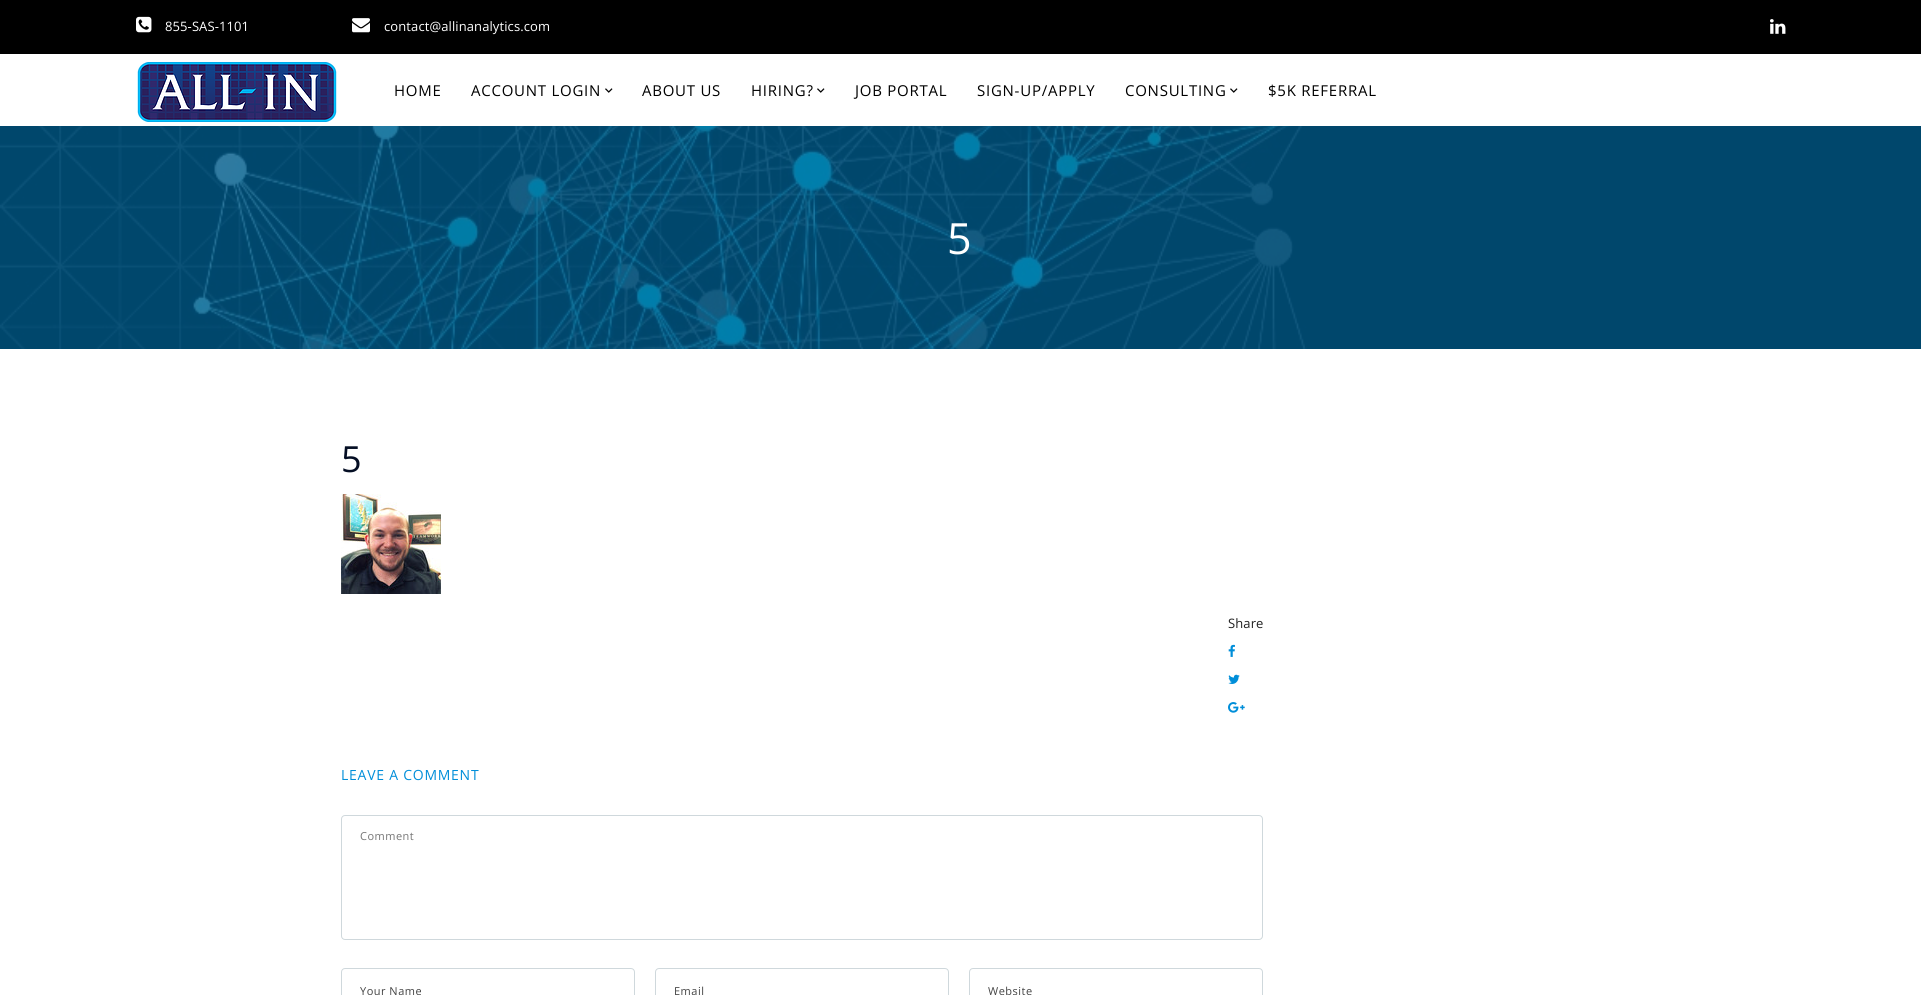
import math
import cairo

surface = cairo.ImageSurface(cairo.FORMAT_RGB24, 1921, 995)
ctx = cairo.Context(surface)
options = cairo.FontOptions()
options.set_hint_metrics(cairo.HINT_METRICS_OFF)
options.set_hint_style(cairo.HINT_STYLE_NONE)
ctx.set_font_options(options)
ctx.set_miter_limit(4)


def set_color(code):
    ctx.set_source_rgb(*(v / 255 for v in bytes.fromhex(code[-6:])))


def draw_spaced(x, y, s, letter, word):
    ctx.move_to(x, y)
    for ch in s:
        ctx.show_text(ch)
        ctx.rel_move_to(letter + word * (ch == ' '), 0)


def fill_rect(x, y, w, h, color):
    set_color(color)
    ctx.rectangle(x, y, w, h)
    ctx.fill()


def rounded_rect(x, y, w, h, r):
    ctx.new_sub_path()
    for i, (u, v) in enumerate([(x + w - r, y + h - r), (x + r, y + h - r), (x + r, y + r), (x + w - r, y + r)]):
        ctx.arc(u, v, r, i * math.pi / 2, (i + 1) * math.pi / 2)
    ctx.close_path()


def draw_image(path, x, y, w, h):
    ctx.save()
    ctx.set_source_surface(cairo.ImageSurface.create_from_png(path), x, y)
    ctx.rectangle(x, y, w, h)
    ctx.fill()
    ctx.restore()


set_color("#ffffff")
ctx.paint()
fill_rect(0, 0, 1921, 54, "#000000")
draw_image("assets/img1.png", 136, 16, 16, 17)
ctx.select_font_face("Open Sans")
ctx.set_font_size(13)
set_color("#ffffff")
draw_spaced(165, 31, "855-SAS-1101", 0.1, 0)
draw_image("assets/img2.png", 352, 18, 18, 15)
draw_spaced(384, 31, "contact@allinanalytics.com", 0.1, 0)
draw_image("assets/img3.png", 1770, 19, 16, 15)
draw_image("assets/img4.png", 137, 62, 200, 60)
ctx.set_font_size(15)
set_color("#000000")
draw_spaced(394, 96, "HOME", 0.75, 0)
draw_spaced(471, 96, "ACCOUNT LOGIN", 0.75, 0)
draw_image("assets/img5.png", 605, 88, 8, 5)
draw_spaced(642, 96, "ABOUT US", 0.75, 0)
draw_spaced(751, 96, "HIRING?", 0.75, 0)
draw_image("assets/img5.png", 817, 88, 8, 5)
draw_spaced(855, 96, "JOB PORTAL", 0.75, 0)
draw_spaced(977, 96, "SIGN-UP/APPLY", 0.75, 0)
draw_spaced(1125, 96, "CONSULTING", 0.75, 0)
draw_image("assets/img5.png", 1230, 88, 8, 5)
draw_spaced(1268, 96, "$5K REFERRAL", 0.75, 0)
draw_image("assets/img6.png", 0, 126, 1921, 223)
ctx.set_font_size(43)
set_color("#ffffff")
draw_spaced(947, 254, "5", 2, 0)
ctx.set_font_size(36)
set_color("#040e24")
draw_spaced(341, 472, "5", 2, 0)
draw_image("assets/img7.png", 341, 494, 100, 100)
ctx.set_font_size(13)
set_color("#212121")
draw_spaced(1228, 628, "Share", 0.1, 0)
draw_image("assets/img8.png", 1228, 644, 7, 13)
draw_image("assets/img9.png", 1228, 674, 12, 10)
draw_image("assets/img10.png", 1228, 702, 17, 11)
ctx.set_font_size(14)
set_color("#008ed9")
draw_spaced(341, 780, "LEAVE A COMMENT", 0.75, 0)
rounded_rect(341.5, 815.5, 921, 124, 3.5)
set_color("#cfd8dc")
ctx.set_line_width(1)
ctx.stroke()
ctx.set_font_size(11)
set_color("#757575")
draw_spaced(360, 840, "Comment", 0.5, 0)
rounded_rect(341.5, 968.5, 293, 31, 3.5)
set_color("#cfd8dc")
ctx.stroke()
set_color("#424242")
draw_spaced(360, 995, "Your Name", 0.5, 0)
rounded_rect(655.5, 968.5, 293, 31, 3.5)
set_color("#cfd8dc")
ctx.stroke()
set_color("#424242")
draw_spaced(674, 995, "Email", 0.5, 0)
rounded_rect(969.5, 968.5, 293, 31, 3.5)
set_color("#cfd8dc")
ctx.stroke()
set_color("#424242")
draw_spaced(988, 995, "Website", 0.5, 0)
surface.write_to_png("output.png")
